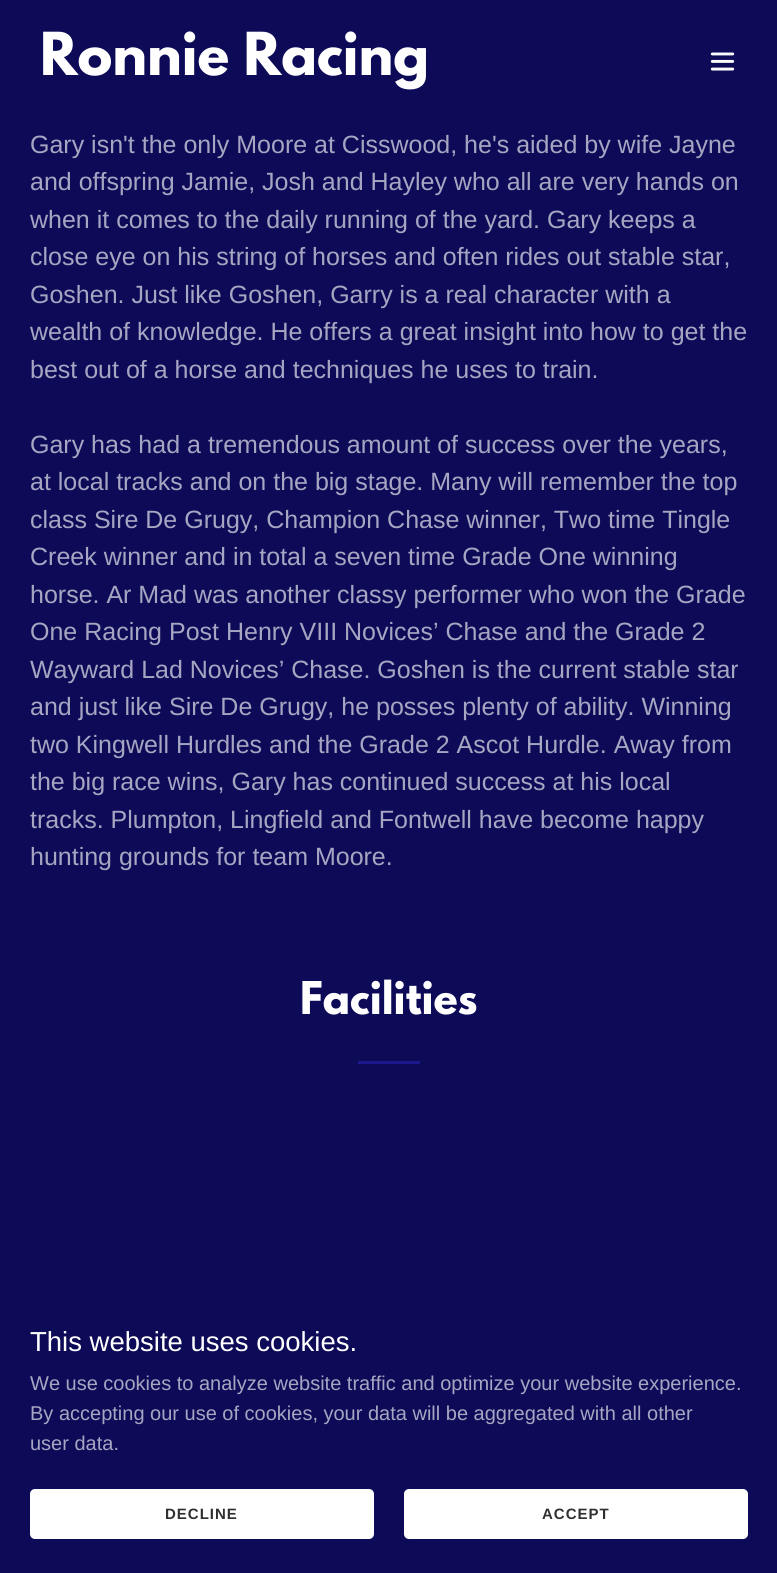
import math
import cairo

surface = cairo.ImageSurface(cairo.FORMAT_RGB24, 777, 1573)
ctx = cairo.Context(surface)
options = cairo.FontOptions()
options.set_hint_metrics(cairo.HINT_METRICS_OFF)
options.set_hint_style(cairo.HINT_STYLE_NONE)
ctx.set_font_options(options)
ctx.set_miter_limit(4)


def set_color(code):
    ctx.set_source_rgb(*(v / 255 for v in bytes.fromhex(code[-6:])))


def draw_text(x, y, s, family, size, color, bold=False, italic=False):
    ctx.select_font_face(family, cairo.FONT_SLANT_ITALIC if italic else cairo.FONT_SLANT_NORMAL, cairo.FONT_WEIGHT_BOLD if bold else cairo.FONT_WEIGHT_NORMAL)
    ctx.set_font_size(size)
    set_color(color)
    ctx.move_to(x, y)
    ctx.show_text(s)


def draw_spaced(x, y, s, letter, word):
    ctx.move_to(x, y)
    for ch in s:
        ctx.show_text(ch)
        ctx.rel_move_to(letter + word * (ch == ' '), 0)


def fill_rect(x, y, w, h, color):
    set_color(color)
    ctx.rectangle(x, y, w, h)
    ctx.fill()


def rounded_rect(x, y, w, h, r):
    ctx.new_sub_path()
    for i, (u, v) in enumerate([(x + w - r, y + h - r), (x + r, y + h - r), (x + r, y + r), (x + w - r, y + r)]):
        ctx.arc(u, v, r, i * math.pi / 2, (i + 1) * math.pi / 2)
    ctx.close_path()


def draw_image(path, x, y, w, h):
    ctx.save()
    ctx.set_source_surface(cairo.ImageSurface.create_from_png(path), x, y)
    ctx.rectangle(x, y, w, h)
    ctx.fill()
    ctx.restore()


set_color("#0d0a57")
ctx.paint()
draw_text(40, 75, "Ronnie Racing", "League Spartan", 52.5, "#ffffff", bold=True)
draw_image("assets/img1.png", 710, 52, 25, 19)
draw_text(30, 153, "Gary isn't the only Moore at Cisswood, he's aided by wife Jayne", "Liberation Sans", 25, "#a6a6c3")
draw_text(30, 190, "and offspring Jamie, Josh and Hayley who all are very hands on", "Liberation Sans", 25, "#a6a6c3")
draw_text(30, 228, "when it comes to the daily running of the yard. Gary keeps a", "Liberation Sans", 25, "#a6a6c3")
draw_text(30, 265, "close eye on his string of horses and often rides out stable star,", "Liberation Sans", 25, "#a6a6c3")
draw_text(30, 303, "Goshen. Just like Goshen, Garry is a real character with a", "Liberation Sans", 25, "#a6a6c3")
draw_text(30, 340, "wealth of knowledge. He offers a great insight into how to get the", "Liberation Sans", 25, "#a6a6c3")
draw_text(30, 378, "best out of a horse and techniques he uses to train.", "Liberation Sans", 25, "#a6a6c3")
draw_text(30, 453, "Gary has had a tremendous amount of success over the years,", "Liberation Sans", 25, "#a6a6c3")
draw_text(30, 490, "at local tracks and on the big stage. Many will remember the top", "Liberation Sans", 25, "#a6a6c3")
draw_text(30, 528, "class Sire De Grugy, Champion Chase winner, Two time Tingle", "Liberation Sans", 25, "#a6a6c3")
draw_text(30, 565, "Creek winner and in total a seven time Grade One winning", "Liberation Sans", 25, "#a6a6c3")
draw_text(30, 603, "horse. Ar Mad was another classy performer who won the Grade", "Liberation Sans", 25, "#a6a6c3")
draw_text(30, 640, "One Racing Post Henry VIII Novices’ Chase and the Grade 2", "Liberation Sans", 25, "#a6a6c3")
draw_text(30, 678, "Wayward Lad Novices’ Chase. Goshen is the current stable star", "Liberation Sans", 25, "#a6a6c3")
draw_text(30, 715, "and just like Sire De Grugy, he posses plenty of ability. Winning", "Liberation Sans", 25, "#a6a6c3")
draw_text(30, 753, "two Kingwell Hurdles and the Grade 2 Ascot Hurdle. Away from", "Liberation Sans", 25, "#a6a6c3")
draw_text(30, 790, "the big race wins, Gary has continued success at his local", "Liberation Sans", 25, "#a6a6c3")
draw_text(30, 828, "tracks. Plumpton, Lingfield and Fontwell have become happy", "Liberation Sans", 25, "#a6a6c3")
draw_text(30, 865, "hunting grounds for team Moore.", "Liberation Sans", 25, "#a6a6c3")
draw_text(300, 1014, "Facilities", "League Spartan", 40, "#ffffff", bold=True)
fill_rect(358, 1061, 62, 3, "#1b178c")
draw_text(30, 1351, "This website uses cookies.", "Liberation Sans", 27.5, "#ffffff")
draw_text(30, 1390, "We use cookies to analyze website traffic and optimize your website experience.", "Liberation Sans", 20, "#a6a6c3")
draw_text(30, 1420, "By accepting our use of cookies, your data will be aggregated with all other", "Liberation Sans", 20, "#a6a6c3")
draw_text(30, 1450, "user data.", "Liberation Sans", 20, "#a6a6c3")
set_color("#ffffff")
rounded_rect(30, 1489, 344, 50, 5)
ctx.fill()
ctx.select_font_face("Liberation Sans", cairo.FONT_SLANT_NORMAL, cairo.FONT_WEIGHT_BOLD)
ctx.set_font_size(15)
set_color("#303030")
draw_spaced(165, 1519, "DECLINE", 1, 0)
set_color("#ffffff")
rounded_rect(404, 1489, 344, 50, 5)
ctx.fill()
set_color("#303030")
draw_spaced(542, 1519, "ACCEPT", 1, 0)
surface.write_to_png("output.png")
